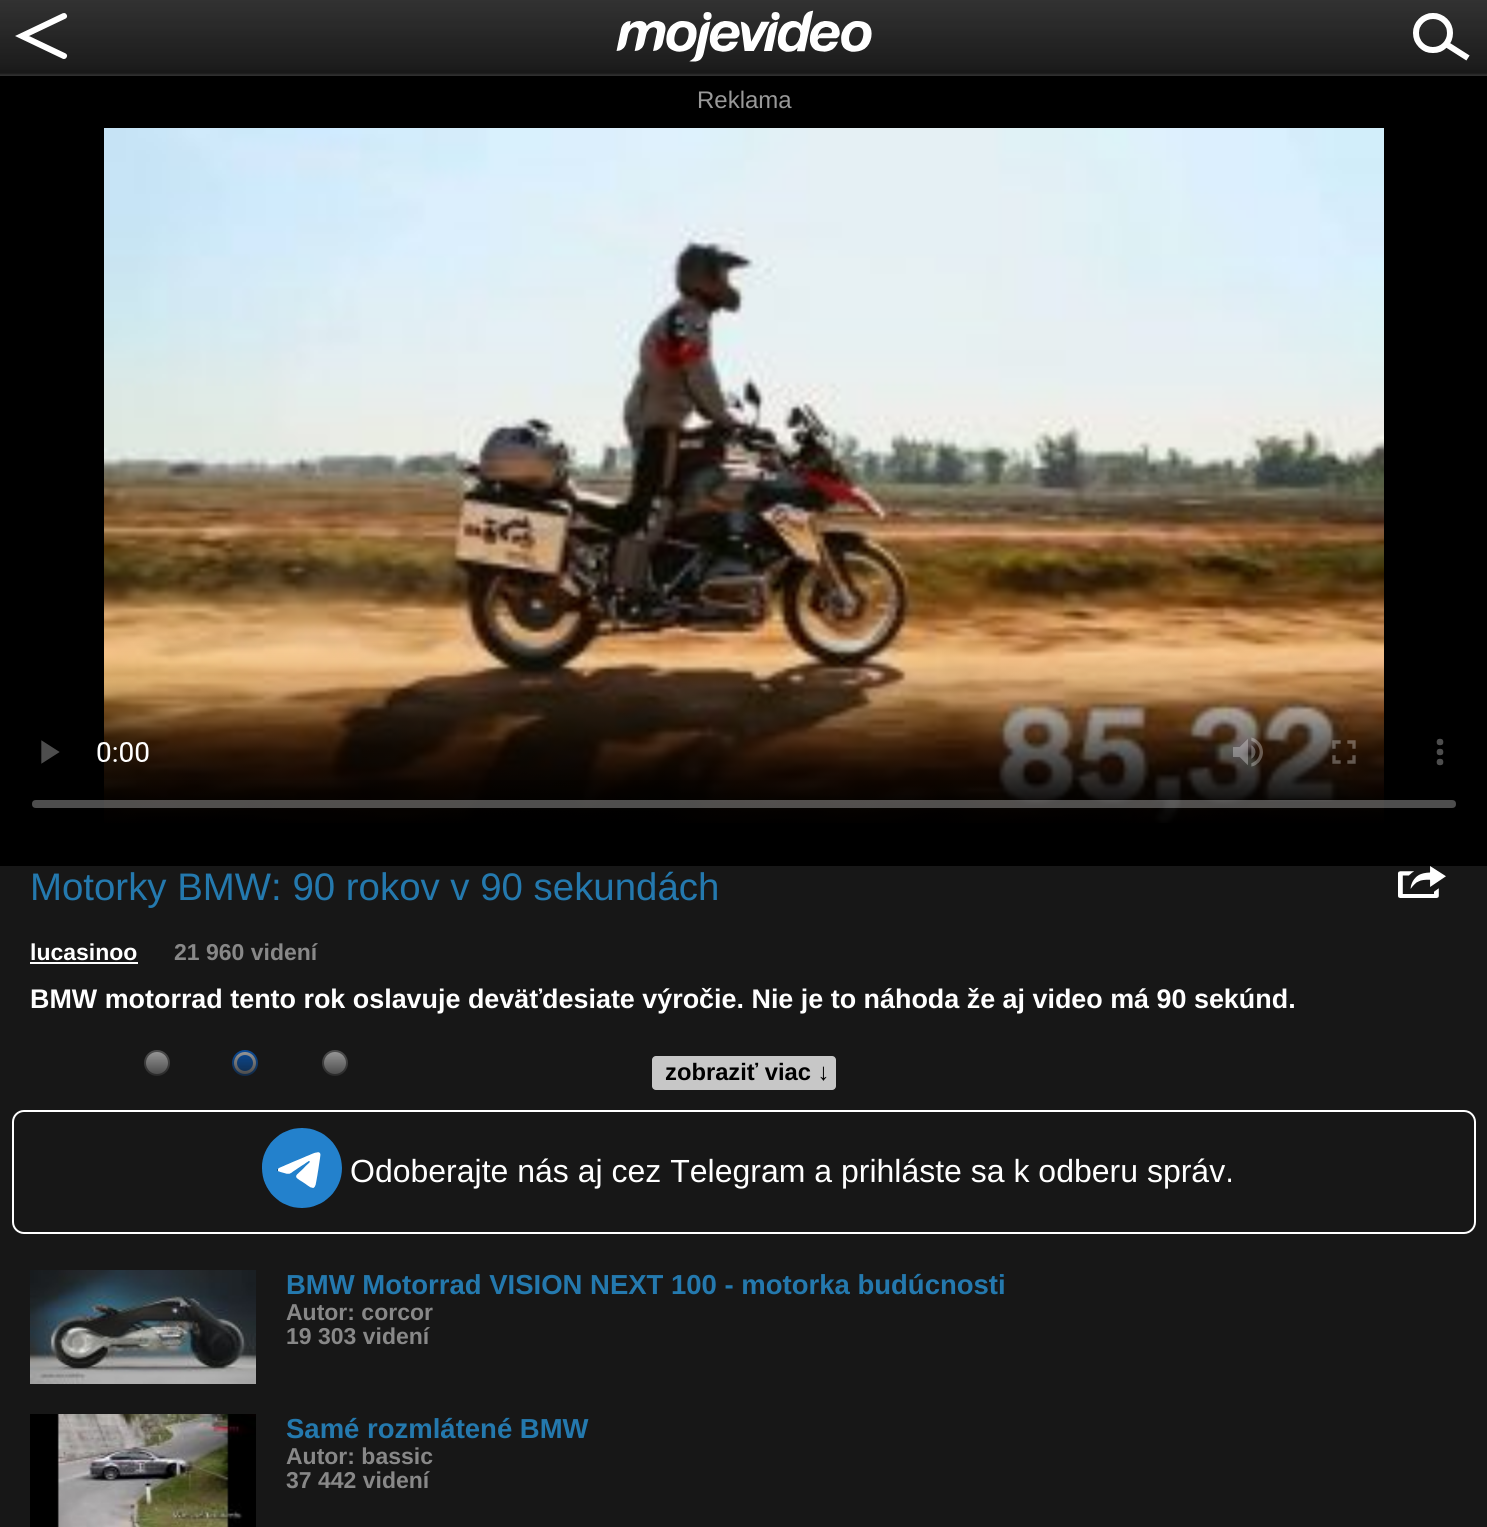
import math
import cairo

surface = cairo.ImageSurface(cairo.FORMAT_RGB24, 1487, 1527)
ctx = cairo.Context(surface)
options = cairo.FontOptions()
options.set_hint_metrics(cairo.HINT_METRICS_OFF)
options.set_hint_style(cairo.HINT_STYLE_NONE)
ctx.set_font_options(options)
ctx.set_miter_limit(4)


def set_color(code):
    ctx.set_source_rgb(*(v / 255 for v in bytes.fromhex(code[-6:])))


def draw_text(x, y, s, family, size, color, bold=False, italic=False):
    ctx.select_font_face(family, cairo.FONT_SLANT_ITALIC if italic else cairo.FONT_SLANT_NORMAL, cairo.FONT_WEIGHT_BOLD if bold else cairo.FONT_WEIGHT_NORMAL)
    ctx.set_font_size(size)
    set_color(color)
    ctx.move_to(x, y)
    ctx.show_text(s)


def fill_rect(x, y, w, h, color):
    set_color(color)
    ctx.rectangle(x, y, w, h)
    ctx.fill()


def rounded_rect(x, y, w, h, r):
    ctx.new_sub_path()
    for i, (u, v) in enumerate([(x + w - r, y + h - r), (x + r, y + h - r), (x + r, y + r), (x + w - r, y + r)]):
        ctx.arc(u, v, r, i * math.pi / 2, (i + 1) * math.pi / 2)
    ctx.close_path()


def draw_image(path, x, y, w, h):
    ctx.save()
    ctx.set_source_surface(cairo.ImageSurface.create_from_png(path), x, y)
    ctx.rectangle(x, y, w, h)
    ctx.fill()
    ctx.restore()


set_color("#000000")
ctx.paint()
draw_image("assets/img1.png", 0, 0, 1487, 76)
draw_image("assets/img2.png", 15, 13, 53, 46)
draw_image("assets/img3.png", 616, 10, 256, 52)
draw_image("assets/img4.png", 1413, 13, 57, 48)
draw_text(697, 108, "Reklama", "Liberation Sans", 24, "#999999")
draw_image("assets/img5.png", 32, 128, 1424, 695)
fill_rect(0, 866, 1487, 661, "#171717")
draw_text(30, 900, "Motorky BMW: 90 rokov v 90 sekundách", "Liberation Sans", 38.4, "#2479ae")
draw_image("assets/img6.png", 1398, 866, 48, 32)
draw_text(30, 960, "lucasinoo", "Liberation Sans", 23, "#ffffff", bold=True)
fill_rect(30, 962, 108, 2, "#ffffff")
draw_text(174, 960, "21 960 videní", "Liberation Sans", 23, "#888888", bold=True)
draw_text(30, 1008, "BMW motorrad tento rok oslavuje deväťdesiate výročie. Nie je to náhoda že aj video má 90 sekúnd.", "Liberation Sans", 26.9, "#ffffff", bold=True)
ctx.new_path()
ctx.arc(157, 1063, 12, 0, 2 * math.pi)
ctx.fill_preserve()
set_color("#767676")
ctx.stroke()
set_color("#ffffff")
ctx.arc(245, 1063, 12, 0, 2 * math.pi)
ctx.fill_preserve()
set_color("#0075ff")
ctx.stroke()
ctx.arc(245, 1063, 8, 0, 2 * math.pi)
ctx.fill()
set_color("#ffffff")
ctx.arc(335, 1063, 12, 0, 2 * math.pi)
ctx.fill_preserve()
set_color("#767676")
ctx.stroke()
gradient = cairo.LinearGradient(744, 1020, 744, 1090)
gradient.add_color_stop_rgba(0, 0.09, 0.09, 0.09, 0)
gradient.add_color_stop_rgba(1, 0.09, 0.09, 0.09, 1)
ctx.set_source(gradient)
ctx.rectangle(144, 1050, 204, 26)
ctx.fill()
set_color("#c7c7c7")
rounded_rect(652, 1056, 184, 34, 4)
ctx.fill()
draw_text(665, 1080, "zobraziť viac ↓", "Liberation Sans", 23.75, "#000000", bold=True)
rounded_rect(13, 1111, 1462, 122, 11)
set_color("#ffffff")
ctx.stroke()
draw_image("assets/img7.png", 262, 1128, 80, 80)
draw_text(350, 1182, "Odoberajte nás aj cez Telegram a prihláste sa k odberu správ.", "Liberation Sans", 32, "#ffffff")
draw_image("assets/img8.png", 30, 1270, 226, 114)
draw_text(286, 1294, "BMW Motorrad VISION NEXT 100 - motorka budúcnosti", "Liberation Sans", 27.5, "#2479ae", bold=True)
draw_text(286, 1320, "Autor: corcor", "Liberation Sans", 23, "#888888", bold=True)
draw_text(286, 1344, "19 303 videní", "Liberation Sans", 23, "#888888", bold=True)
draw_image("assets/img9.png", 30, 1414, 226, 113)
draw_text(286, 1438, "Samé rozmlátené BMW", "Liberation Sans", 27.5, "#2479ae", bold=True)
draw_text(286, 1464, "Autor: bassic", "Liberation Sans", 23, "#888888", bold=True)
draw_text(286, 1488, "37 442 videní", "Liberation Sans", 23, "#888888", bold=True)
surface.write_to_png("output.png")
